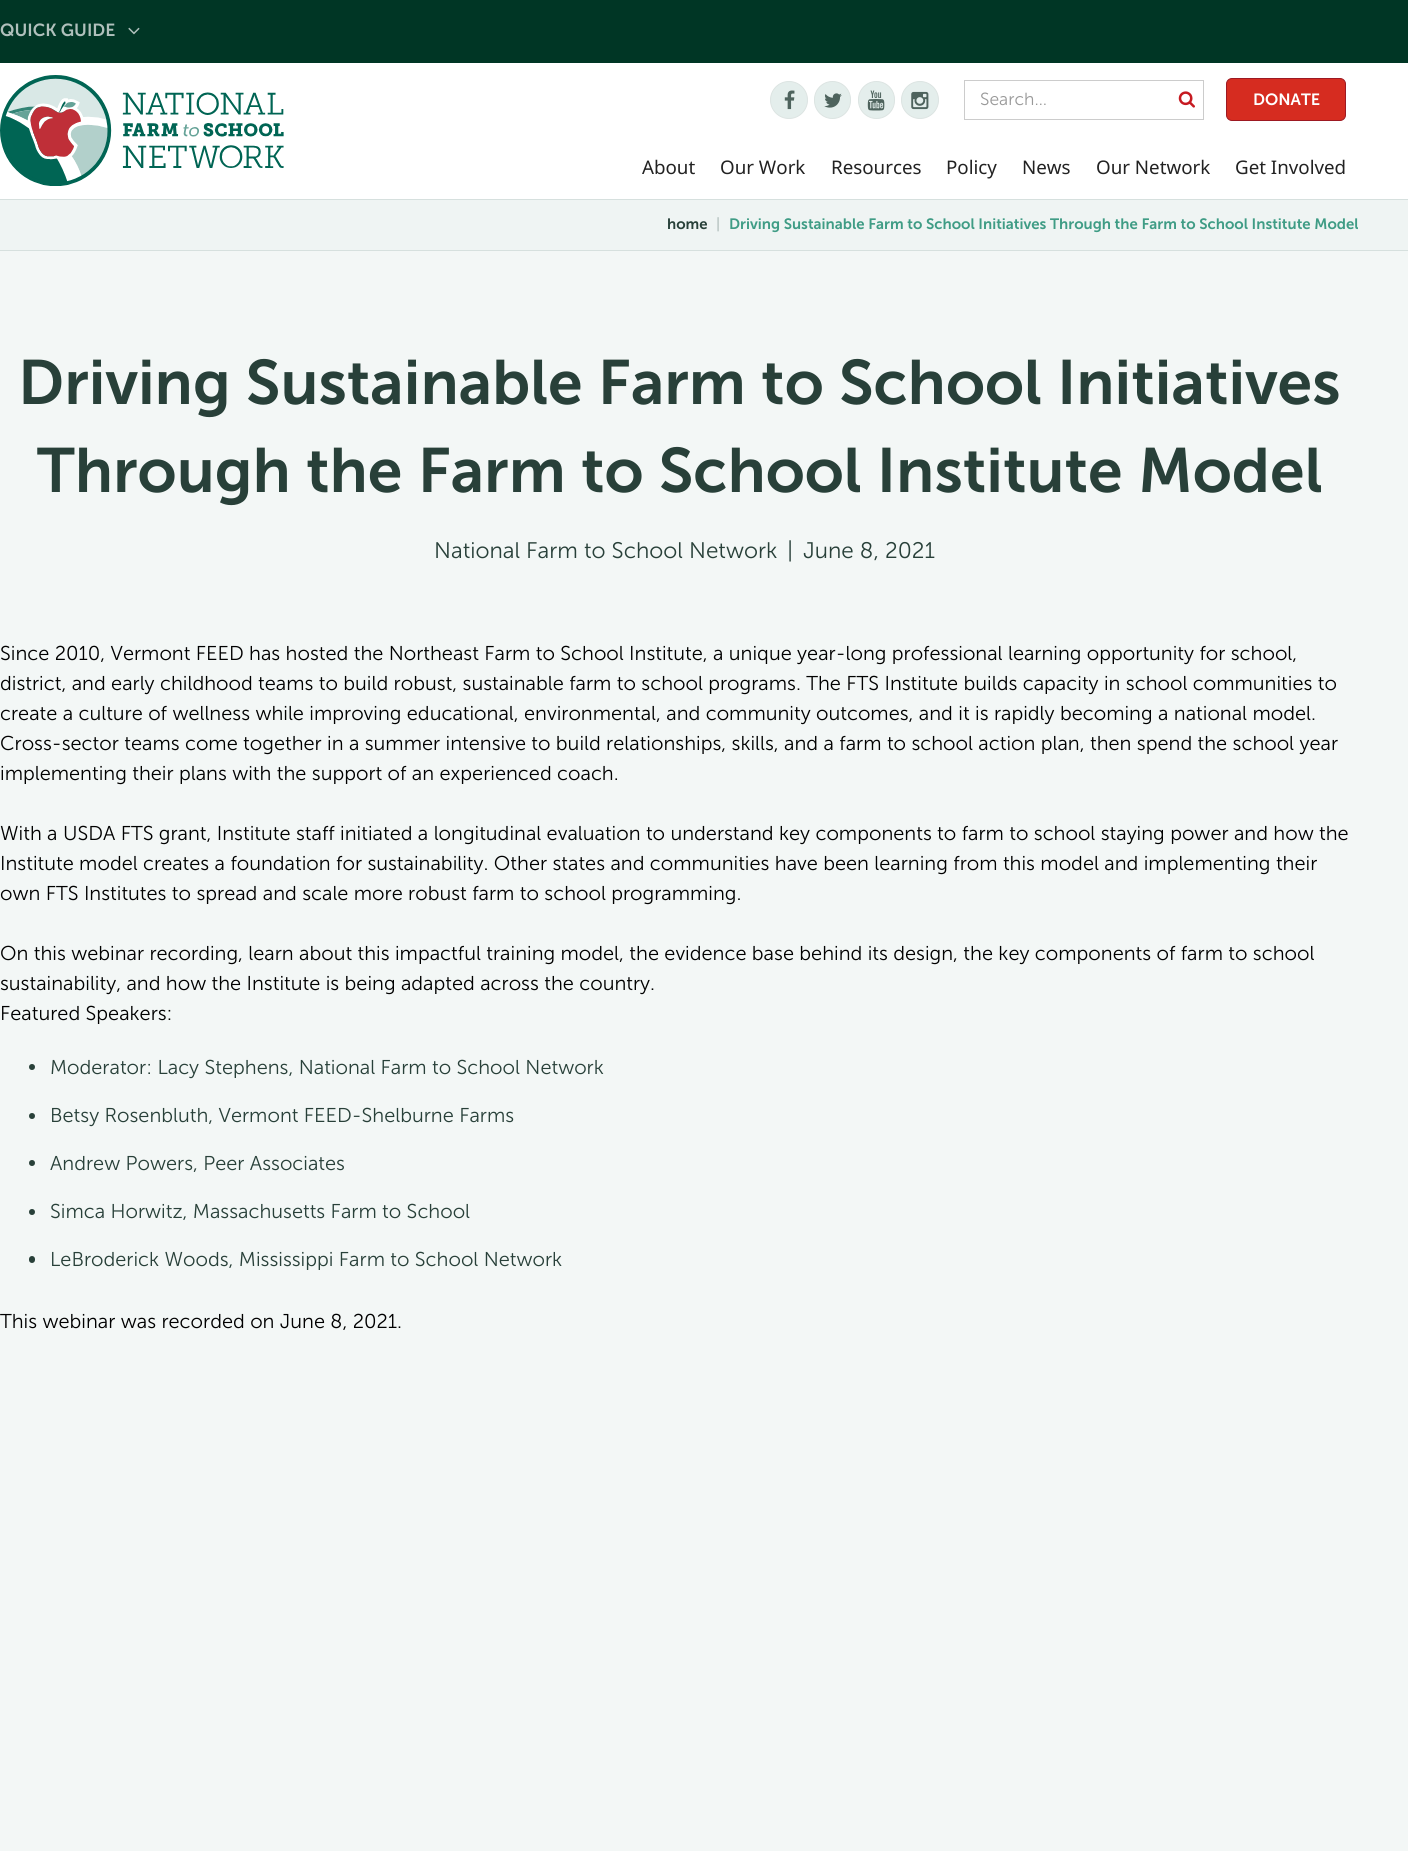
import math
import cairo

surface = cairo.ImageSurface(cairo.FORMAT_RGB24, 1408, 1851)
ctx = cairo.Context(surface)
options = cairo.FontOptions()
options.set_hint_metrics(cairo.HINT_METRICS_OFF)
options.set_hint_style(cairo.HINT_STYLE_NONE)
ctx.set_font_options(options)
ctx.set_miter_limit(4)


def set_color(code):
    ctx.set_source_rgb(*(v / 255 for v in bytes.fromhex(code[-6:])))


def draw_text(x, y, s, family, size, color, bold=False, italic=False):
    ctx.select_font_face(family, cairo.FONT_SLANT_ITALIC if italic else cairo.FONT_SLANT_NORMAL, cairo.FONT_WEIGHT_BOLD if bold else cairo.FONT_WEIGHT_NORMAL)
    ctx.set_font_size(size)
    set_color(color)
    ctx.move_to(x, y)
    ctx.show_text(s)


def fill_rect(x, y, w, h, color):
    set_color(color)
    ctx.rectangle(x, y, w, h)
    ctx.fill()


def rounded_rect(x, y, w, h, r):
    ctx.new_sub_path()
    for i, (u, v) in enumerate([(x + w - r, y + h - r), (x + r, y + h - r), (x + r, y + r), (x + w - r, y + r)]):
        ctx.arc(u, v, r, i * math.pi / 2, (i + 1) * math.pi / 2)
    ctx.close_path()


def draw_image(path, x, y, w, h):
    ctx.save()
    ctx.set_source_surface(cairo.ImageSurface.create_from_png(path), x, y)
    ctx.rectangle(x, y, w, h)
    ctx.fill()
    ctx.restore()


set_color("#ffffff")
ctx.paint()
fill_rect(0, 0, 1408, 63, "#003625")
draw_text(0, 36, "QUICK GUIDE", "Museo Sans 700 SemiBold", 17.5, "#b0c0bc")
draw_image("assets/img1.png", 128, 27, 12, 8)
draw_image("assets/img2.png", 0, 75, 284, 111)
set_color("#e4eeec")
ctx.arc(789, 100, 18.5, 0, 2 * math.pi)
ctx.fill_preserve()
set_color("#dce4e2")
ctx.set_line_width(1)
ctx.stroke()
draw_image("assets/img3.png", 784, 90, 11, 20)
set_color("#e4eeec")
rounded_rect(814.5, 81.5, 36, 37, 18)
ctx.fill_preserve()
set_color("#dce4e2")
ctx.stroke()
draw_image("assets/img4.png", 824, 93, 18, 15)
set_color("#e4eeec")
rounded_rect(858.5, 81.5, 36, 37, 18)
ctx.fill_preserve()
set_color("#dce4e2")
ctx.stroke()
draw_image("assets/img5.png", 867, 90, 18, 21)
set_color("#e4eeec")
ctx.arc(920, 100, 18.5, 0, 2 * math.pi)
ctx.fill_preserve()
set_color("#dce4e2")
ctx.stroke()
draw_image("assets/img6.png", 911, 91, 18, 19)
ctx.rectangle(964.5, 80.5, 239, 39)
set_color("#cccccc")
ctx.stroke()
draw_text(980, 105, "Search…", "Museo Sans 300 Light", 17.5, "#999999")
draw_image("assets/img7.png", 1178, 91, 17, 17)
set_color("#d62c20")
rounded_rect(1226.5, 78.5, 119, 42, 5.5)
ctx.fill_preserve()
set_color("#9d1922")
ctx.stroke()
draw_text(1253, 105, "DONATE", "Museo Sans 700 SemiBold", 16.25, "#ffffff")
draw_text(642, 174, "About", "Noto Sans", 18.75, "#222222")
draw_text(720, 174, "Our Work", "Noto Sans", 18.75, "#222222")
draw_text(831, 174, "Resources", "Noto Sans", 18.75, "#222222")
draw_text(946, 174, "Policy", "Noto Sans", 18.75, "#222222")
draw_text(1022, 174, "News", "Noto Sans", 18.75, "#222222")
draw_text(1096, 174, "Our Network", "Noto Sans", 18.75, "#222222")
draw_text(1235, 174, "Get Involved", "Noto Sans", 18.75, "#222222")
fill_rect(0, 200, 1408, 50, "#eff4f3")
fill_rect(0, 199, 1408, 1, "#d6e0de")
fill_rect(0, 250, 1408, 1, "#d6e0de")
draw_text(667, 229, "home", "Museo Sans 700 SemiBold", 15, "#284039")
draw_text(716, 229, "|", "Museo Sans 300 Light", 15, "#9baca9")
draw_text(729, 229, "Driving Sustainable Farm to School Initiatives Through the Farm to School Institute Model", "Museo Sans 700 SemiBold", 15, "#3f9c85")
fill_rect(0, 251, 1408, 1600, "#f3f7f6")
draw_text(18, 404, "Driving Sustainable Farm to School Initiatives", "Museo Sans 700 SemiBold", 62.5, "#284039")
draw_text(37, 492, "Through the Farm to School Institute Model", "Museo Sans 700 SemiBold", 62.5, "#284039")
draw_text(434, 558, "National Farm to School Network", "Museo Sans 300 Light", 22.5, "#284039")
draw_text(787, 558, "|", "Museo Sans 300 Light", 22.5, "#284039")
draw_text(803, 558, "June 8, 2021", "Museo Sans 300 Light", 22.5, "#284039")
draw_text(0, 660, "Since 2010, Vermont FEED has hosted the Northeast Farm to School Institute, a unique year-long professional learning opportunity for school,", "Museo Sans 300 Light", 20, "#000000")
draw_text(0, 690, "district, and early childhood teams to build robust, sustainable farm to school programs. The FTS Institute builds capacity in school communities to", "Museo Sans 300 Light", 20, "#000000")
draw_text(0, 720, "create a culture of wellness while improving educational, environmental, and community outcomes, and it is rapidly becoming a national model.", "Museo Sans 300 Light", 20, "#000000")
draw_text(0, 750, "Cross-sector teams come together in a summer intensive to build relationships, skills, and a farm to school action plan, then spend the school year", "Museo Sans 300 Light", 20, "#000000")
draw_text(0, 780, "implementing their plans with the support of an experienced coach.", "Museo Sans 300 Light", 20, "#000000")
draw_text(0, 840, "With a USDA FTS grant, Institute staff initiated a longitudinal evaluation to understand key components to farm to school staying power and how the", "Museo Sans 300 Light", 20, "#000000")
draw_text(0, 870, "Institute model creates a foundation for sustainability. Other states and communities have been learning from this model and implementing their", "Museo Sans 300 Light", 20, "#000000")
draw_text(0, 900, "own FTS Institutes to spread and scale more robust farm to school programming.", "Museo Sans 300 Light", 20, "#000000")
draw_text(0, 960, "On this webinar recording, learn about this impactful training model, the evidence base behind its design, the key components of farm to school", "Museo Sans 300 Light", 20, "#000000")
draw_text(0, 990, "sustainability, and how the Institute is being adapted across the country.", "Museo Sans 300 Light", 20, "#000000")
draw_text(0, 1020, "Featured Speakers:", "Museo Sans 300 Light", 20, "#000000")
set_color("#284039")
ctx.new_path()
ctx.arc(32, 1067, 3, 0, 2 * math.pi)
ctx.fill()
draw_text(50, 1074, "Moderator: Lacy Stephens, National Farm to School Network", "Museo Sans 300 Light", 20, "#284039")
ctx.new_path()
ctx.arc(32, 1116, 3, 0, 2 * math.pi)
ctx.fill()
draw_text(50, 1122, "Betsy Rosenbluth, Vermont FEED-Shelburne Farms", "Museo Sans 300 Light", 20, "#284039")
ctx.new_path()
ctx.arc(32, 1163, 3, 0, 2 * math.pi)
ctx.fill()
draw_text(50, 1170, "Andrew Powers, Peer Associates", "Museo Sans 300 Light", 20, "#284039")
ctx.new_path()
ctx.arc(32, 1212, 3, 0, 2 * math.pi)
ctx.fill()
draw_text(50, 1218, "Simca Horwitz, Massachusetts Farm to School", "Museo Sans 300 Light", 20, "#284039")
rounded_rect(29, 1256, 6, 7, 3)
ctx.fill()
draw_text(50, 1266, "LeBroderick Woods, Mississippi Farm to School Network", "Museo Sans 300 Light", 20, "#284039")
draw_text(0, 1328, "This webinar was recorded on June 8, 2021.", "Museo Sans 300 Light", 20, "#000000")
surface.write_to_png("output.png")
